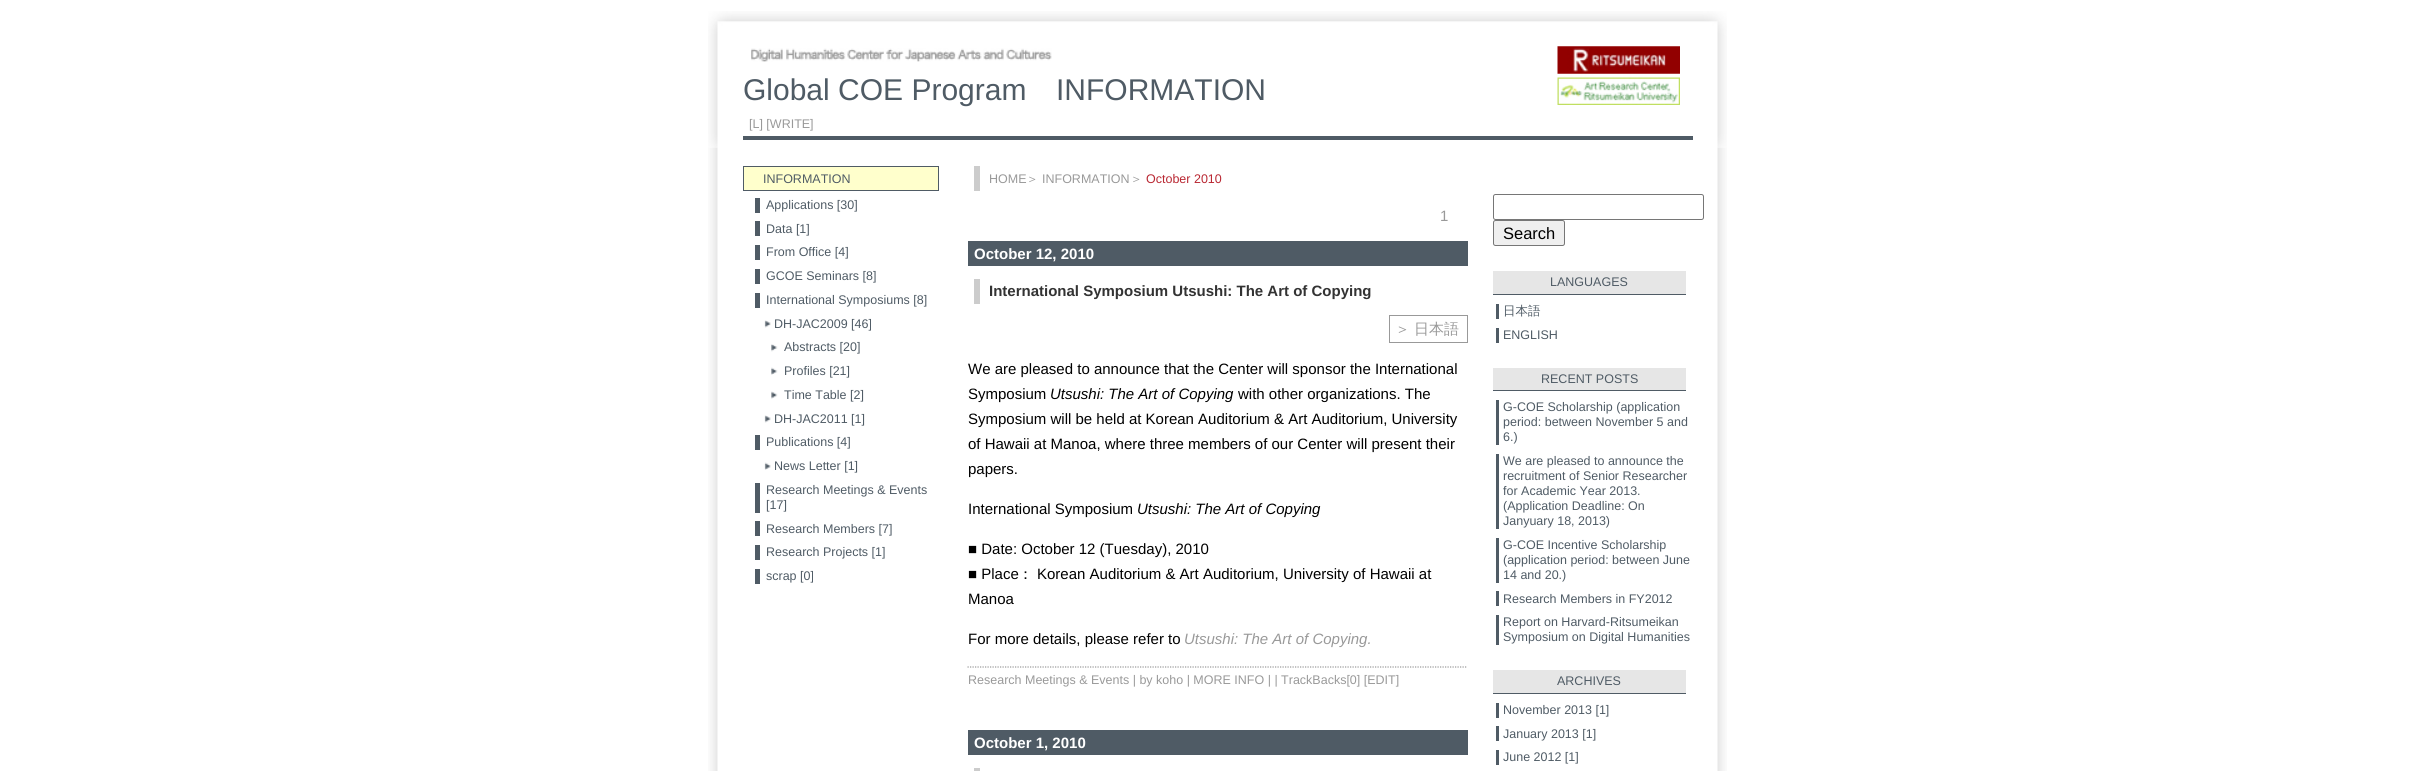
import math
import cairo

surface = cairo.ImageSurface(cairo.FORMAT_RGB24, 2435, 771)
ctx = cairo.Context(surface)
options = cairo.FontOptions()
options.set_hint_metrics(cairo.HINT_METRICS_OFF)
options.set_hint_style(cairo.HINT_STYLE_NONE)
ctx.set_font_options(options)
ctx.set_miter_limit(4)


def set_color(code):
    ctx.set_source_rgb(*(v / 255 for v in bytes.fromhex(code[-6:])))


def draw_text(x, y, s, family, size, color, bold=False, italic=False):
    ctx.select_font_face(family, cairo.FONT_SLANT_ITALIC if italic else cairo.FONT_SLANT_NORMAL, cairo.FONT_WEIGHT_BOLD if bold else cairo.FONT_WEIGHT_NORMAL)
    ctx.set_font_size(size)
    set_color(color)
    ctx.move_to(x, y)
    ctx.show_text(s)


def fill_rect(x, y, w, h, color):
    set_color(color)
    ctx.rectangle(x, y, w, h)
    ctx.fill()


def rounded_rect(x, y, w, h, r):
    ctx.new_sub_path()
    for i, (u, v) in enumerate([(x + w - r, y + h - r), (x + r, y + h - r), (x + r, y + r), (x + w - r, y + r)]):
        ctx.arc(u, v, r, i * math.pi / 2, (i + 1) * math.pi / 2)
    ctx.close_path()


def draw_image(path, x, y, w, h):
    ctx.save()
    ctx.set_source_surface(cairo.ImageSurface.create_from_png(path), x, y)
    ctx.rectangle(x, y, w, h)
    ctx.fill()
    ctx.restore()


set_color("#ffffff")
ctx.paint()
draw_image("assets/img1.png", 708, 11, 1019, 137)
draw_image("assets/img2.png", 751, 48, 301, 14)
draw_text(743, 100, "Global COE Program", "Liberation Sans", 30, "#4f5b65")
draw_text(1056, 100, "INFORMATION", "Liberation Sans", 30, "#4f5b65")
draw_image("assets/img3.png", 1557, 46, 123, 59)
fill_rect(743, 136, 950, 4, "#4f5b65")
draw_text(749, 128, "[L] [WRITE]", "Liberation Sans", 12.5, "#999999")
draw_image("assets/img4.png", 708, 147, 1019, 624)
set_color("#ffffcc")
ctx.rectangle(743.5, 166.5, 195, 24)
ctx.fill_preserve()
set_color("#4f5b65")
ctx.set_line_width(1)
ctx.stroke()
draw_text(763, 183, "INFORMATION", "Liberation Sans", 12.5, "#4f5b65")
fill_rect(755, 198, 5, 15, "#4f5b65")
draw_text(766, 209, "Applications [30]", "Liberation Sans", 12.5, "#4f5b65")
fill_rect(755, 221, 5, 15, "#4f5b65")
draw_text(766, 233, "Data [1]", "Liberation Sans", 12.5, "#4f5b65")
fill_rect(755, 245, 5, 15, "#4f5b65")
draw_text(766, 256, "From Office [4]", "Liberation Sans", 12.5, "#4f5b65")
fill_rect(755, 269, 5, 15, "#4f5b65")
draw_text(766, 280, "GCOE Seminars [8]", "Liberation Sans", 12.5, "#4f5b65")
fill_rect(755, 293, 5, 15, "#4f5b65")
draw_text(766, 304, "International Symposiums [8]", "Liberation Sans", 12.5, "#4f5b65")
draw_image("assets/img5.png", 764, 320, 7, 8)
draw_text(774, 328, "DH-JAC2009 [46]", "Liberation Sans", 12.5, "#4f5b65")
draw_image("assets/img6.png", 771, 344, 7, 8)
draw_text(784, 351, "Abstracts [20]", "Liberation Sans", 12.5, "#4f5b65")
draw_image("assets/img7.png", 771, 367, 7, 8)
draw_text(784, 375, "Profiles [21]", "Liberation Sans", 12.5, "#4f5b65")
draw_image("assets/img8.png", 771, 391, 7, 8)
draw_text(784, 399, "Time Table [2]", "Liberation Sans", 12.5, "#4f5b65")
draw_image("assets/img5.png", 764, 415, 7, 8)
draw_text(774, 423, "DH-JAC2011 [1]", "Liberation Sans", 12.5, "#4f5b65")
fill_rect(755, 435, 5, 15, "#4f5b65")
draw_text(766, 446, "Publications [4]", "Liberation Sans", 12.5, "#4f5b65")
draw_image("assets/img9.png", 764, 462, 7, 8)
draw_text(774, 470, "News Letter [1]", "Liberation Sans", 12.5, "#4f5b65")
fill_rect(755, 483, 5, 30, "#4f5b65")
draw_text(766, 494, "Research Meetings & Events", "Liberation Sans", 12.5, "#4f5b65")
draw_text(766, 509, "[17]", "Liberation Sans", 12.5, "#4f5b65")
fill_rect(755, 521, 5, 15, "#4f5b65")
draw_text(766, 533, "Research Members [7]", "Liberation Sans", 12.5, "#4f5b65")
fill_rect(755, 545, 5, 15, "#4f5b65")
draw_text(766, 556, "Research Projects [1]", "Liberation Sans", 12.5, "#4f5b65")
fill_rect(755, 569, 5, 15, "#4f5b65")
draw_text(766, 580, "scrap [0]", "Liberation Sans", 12.5, "#4f5b65")
fill_rect(974, 166, 6, 25, "#cccccc")
draw_text(989, 183, "HOME", "Liberation Sans", 12.5, "#999999")
draw_text(1026, 183, "＞", "WenQuanYi Zen Hei Medium", 12.5, "#999999")
draw_text(1042, 183, "INFORMATION", "Liberation Sans", 12.5, "#999999")
draw_text(1130, 183, "＞", "WenQuanYi Zen Hei Medium", 12.5, "#999999")
draw_text(1146, 183, "October 2010", "Liberation Sans", 12.5, "#b92732")
draw_text(1440, 221, "1", "Liberation Sans", 15, "#999999")
fill_rect(968, 241, 500, 25, "#4f5b65")
draw_text(974, 259, "October 12, 2010", "Liberation Sans", 15, "#ffffff", bold=True)
fill_rect(974, 279, 6, 25, "#cccccc")
draw_text(989, 296, "International Symposium Utsushi: The Art of Copying", "Liberation Sans", 15, "#333333", bold=True)
ctx.rectangle(1389.5, 315.5, 78, 27)
set_color("#999999")
ctx.stroke()
draw_text(1395, 334, "＞", "WenQuanYi Zen Hei Medium", 15, "#999999")
draw_text(1414, 334, "日本語", "WenQuanYi Zen Hei Medium", 15, "#999999")
draw_text(968, 374, "We are pleased to announce that the Center will sponsor the International", "Liberation Sans", 15, "#000000")
draw_text(968, 399, "Symposium", "Liberation Sans", 15, "#000000")
draw_text(1050, 399, "Utsushi: The Art of Copying", "Liberation Sans", 15, "#000000", italic=True)
draw_text(1238, 399, "with other organizations. The", "Liberation Sans", 15, "#000000")
draw_text(968, 424, "Symposium will be held at Korean Auditorium & Art Auditorium, University", "Liberation Sans", 15, "#000000")
draw_text(968, 449, "of Hawaii at Manoa, where three members of our Center will present their", "Liberation Sans", 15, "#000000")
draw_text(968, 474, "papers.", "Liberation Sans", 15, "#000000")
draw_text(968, 514, "International Symposium", "Liberation Sans", 15, "#000000")
draw_text(1137, 514, "Utsushi: The Art of Copying", "Liberation Sans", 15, "#000000", italic=True)
draw_text(968, 554, "■ Date: October 12 (Tuesday), 2010", "Liberation Sans", 15, "#000000")
draw_text(968, 579, "■ Place", "Liberation Sans", 15, "#000000")
draw_text(1018, 579, "：", "WenQuanYi Zen Hei Medium", 15, "#000000")
draw_text(1037, 579, "Korean Auditorium & Art Auditorium, University of Hawaii at", "Liberation Sans", 15, "#000000")
draw_text(968, 604, "Manoa", "Liberation Sans", 15, "#000000")
draw_text(968, 644, "For more details, please refer to", "Liberation Sans", 15, "#000000")
draw_text(1184, 644, "Utsushi: The Art of Copying.", "Liberation Sans", 15, "#999999", italic=True)
ctx.new_path()
ctx.move_to(967.5, 667)
ctx.line_to(1467.5, 667)
ctx.set_line_width(1.2)
ctx.set_dash([1.25, 1.25])
ctx.stroke()
draw_text(968, 684, "Research Meetings & Events | by koho | MORE INFO | | TrackBacks[0] [EDIT]", "Liberation Sans", 12.5, "#999999")
fill_rect(968, 730, 500, 25, "#4f5b65")
draw_text(974, 748, "October 1, 2010", "Liberation Sans", 15, "#ffffff", bold=True)
fill_rect(974, 768, 6, 3, "#cccccc")
rounded_rect(1493.5, 194.5, 210, 25, 2)
set_color("#767676")
ctx.set_line_width(1)
ctx.set_dash([])
ctx.stroke()
set_color("#efefef")
rounded_rect(1493.5, 220.5, 71, 25, 2)
ctx.fill_preserve()
set_color("#767676")
ctx.stroke()
draw_text(1503, 239, "Search", "Liberation Sans", 16.5, "#000000")
fill_rect(1493, 271, 193, 23, "#e6e6e6")
fill_rect(1493, 294, 193, 1, "#4f5b65")
draw_text(1550, 286, "LANGUAGES", "Liberation Sans", 12.5, "#4f5b65")
fill_rect(1496, 304, 3, 15, "#4f5b65")
draw_text(1503, 315, "日本語", "WenQuanYi Zen Hei Medium", 12.5, "#4f5b65")
fill_rect(1496, 328, 3, 15, "#4f5b65")
draw_text(1503, 339, "ENGLISH", "Liberation Sans", 12.5, "#4f5b65")
fill_rect(1493, 368, 193, 22, "#e6e6e6")
fill_rect(1493, 390, 193, 1, "#4f5b65")
draw_text(1541, 383, "RECENT POSTS", "Liberation Sans", 12.5, "#4f5b65")
fill_rect(1496, 400, 3, 45, "#4f5b65")
draw_text(1503, 411, "G-COE Scholarship (application", "Liberation Sans", 12.5, "#4f5b65")
draw_text(1503, 426, "period: between November 5 and", "Liberation Sans", 12.5, "#4f5b65")
draw_text(1503, 441, "6.)", "Liberation Sans", 12.5, "#4f5b65")
fill_rect(1496, 454, 3, 75, "#4f5b65")
draw_text(1503, 465, "We are pleased to announce the", "Liberation Sans", 12.5, "#4f5b65")
draw_text(1503, 480, "recruitment of Senior Researcher", "Liberation Sans", 12.5, "#4f5b65")
draw_text(1503, 495, "for Academic Year 2013.", "Liberation Sans", 12.5, "#4f5b65")
draw_text(1503, 510, "(Application Deadline: On", "Liberation Sans", 12.5, "#4f5b65")
draw_text(1503, 525, "Janyuary 18, 2013)", "Liberation Sans", 12.5, "#4f5b65")
fill_rect(1496, 538, 3, 45, "#4f5b65")
draw_text(1503, 549, "G-COE Incentive Scholarship", "Liberation Sans", 12.5, "#4f5b65")
draw_text(1503, 564, "(application period: between June", "Liberation Sans", 12.5, "#4f5b65")
draw_text(1503, 579, "14 and 20.)", "Liberation Sans", 12.5, "#4f5b65")
fill_rect(1496, 591, 3, 15, "#4f5b65")
draw_text(1503, 603, "Research Members in FY2012", "Liberation Sans", 12.5, "#4f5b65")
fill_rect(1496, 615, 3, 30, "#4f5b65")
draw_text(1503, 626, "Report on Harvard-Ritsumeikan", "Liberation Sans", 12.5, "#4f5b65")
draw_text(1503, 641, "Symposium on Digital Humanities", "Liberation Sans", 12.5, "#4f5b65")
fill_rect(1493, 670, 193, 23, "#e6e6e6")
fill_rect(1493, 693, 193, 1, "#4f5b65")
draw_text(1557, 685, "ARCHIVES", "Liberation Sans", 12.5, "#4f5b65")
fill_rect(1496, 703, 3, 15, "#4f5b65")
draw_text(1503, 714, "November 2013 [1]", "Liberation Sans", 12.5, "#4f5b65")
fill_rect(1496, 726, 3, 15, "#4f5b65")
draw_text(1503, 738, "January 2013 [1]", "Liberation Sans", 12.5, "#4f5b65")
fill_rect(1496, 750, 3, 15, "#4f5b65")
draw_text(1503, 761, "June 2012 [1]", "Liberation Sans", 12.5, "#4f5b65")
surface.write_to_png("output.png")
